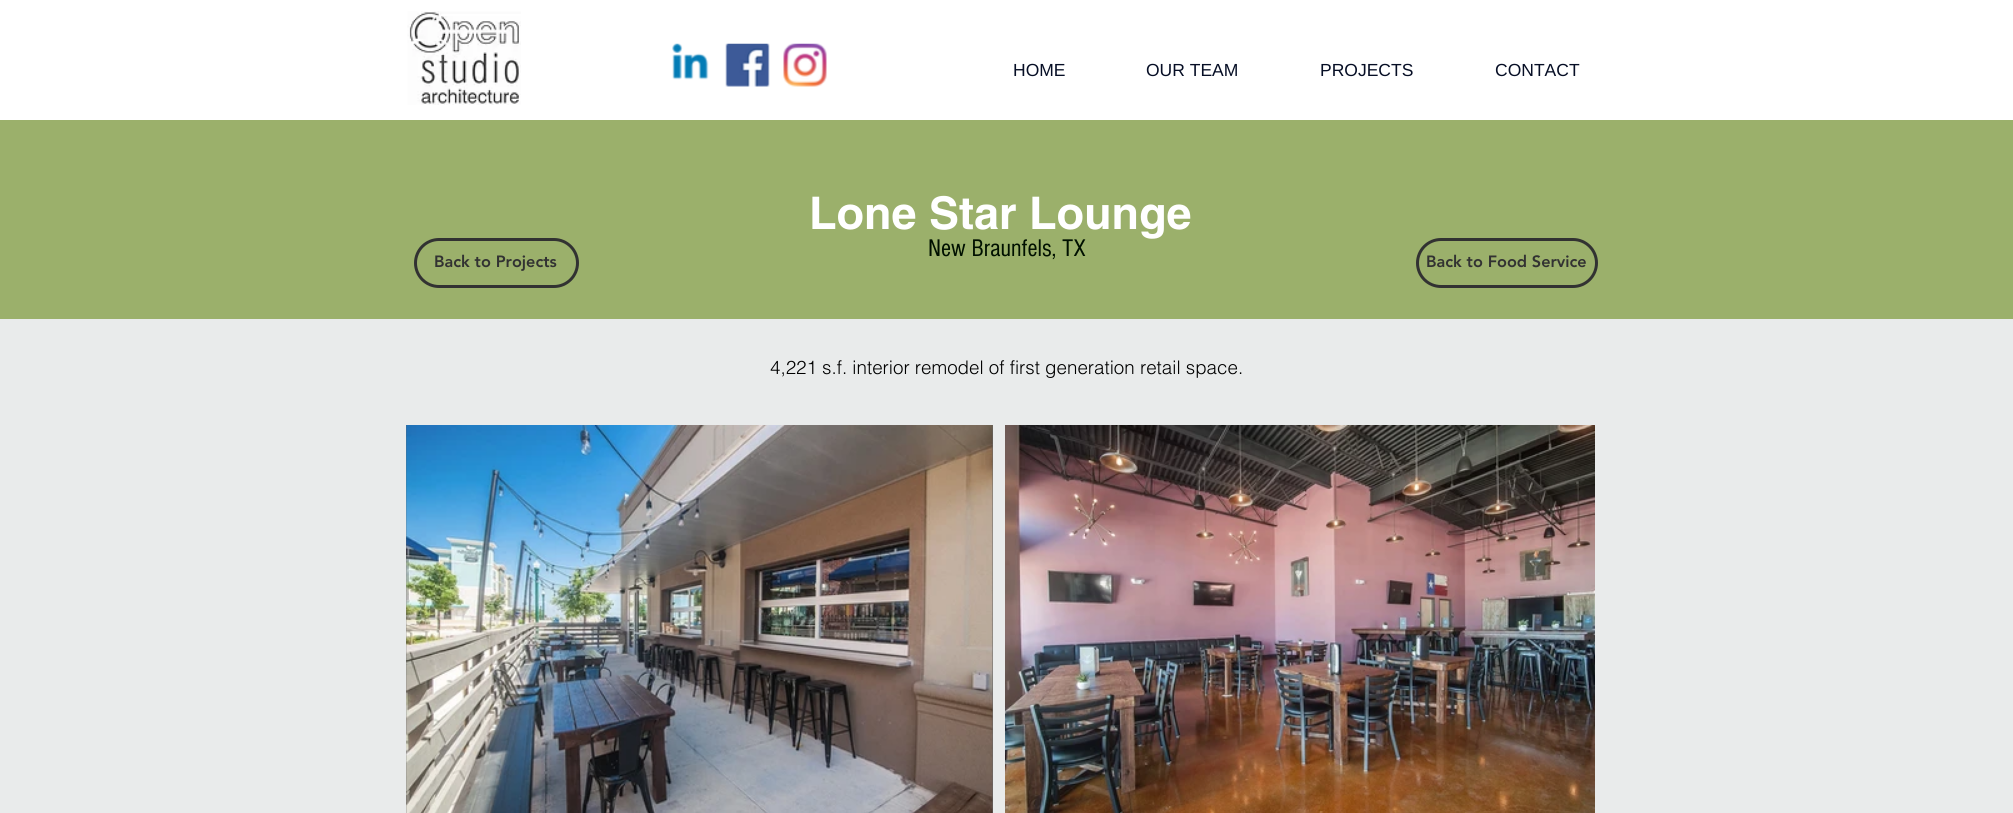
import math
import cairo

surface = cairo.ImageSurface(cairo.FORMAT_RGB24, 2013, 813)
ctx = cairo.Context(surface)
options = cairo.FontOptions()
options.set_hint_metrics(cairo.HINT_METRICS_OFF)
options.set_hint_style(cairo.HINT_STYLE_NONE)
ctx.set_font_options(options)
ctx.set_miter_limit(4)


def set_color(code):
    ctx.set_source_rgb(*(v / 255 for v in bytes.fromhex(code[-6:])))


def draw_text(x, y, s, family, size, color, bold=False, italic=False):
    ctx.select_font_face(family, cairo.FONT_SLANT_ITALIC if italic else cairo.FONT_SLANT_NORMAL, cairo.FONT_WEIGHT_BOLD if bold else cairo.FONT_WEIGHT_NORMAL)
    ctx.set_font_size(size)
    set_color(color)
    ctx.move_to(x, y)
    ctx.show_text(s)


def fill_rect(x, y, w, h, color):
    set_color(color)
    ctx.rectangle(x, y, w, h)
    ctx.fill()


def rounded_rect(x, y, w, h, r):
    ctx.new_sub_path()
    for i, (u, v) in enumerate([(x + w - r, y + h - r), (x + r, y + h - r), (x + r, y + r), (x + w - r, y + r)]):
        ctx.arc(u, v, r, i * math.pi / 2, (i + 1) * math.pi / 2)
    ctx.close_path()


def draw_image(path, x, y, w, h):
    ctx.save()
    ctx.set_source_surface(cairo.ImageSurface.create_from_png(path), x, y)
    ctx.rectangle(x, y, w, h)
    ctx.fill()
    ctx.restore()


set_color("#e9ebeb")
ctx.paint()
fill_rect(0, 0, 2013, 120, "#ffffff")
draw_image("assets/img1.png", 407, 11, 114, 94)
draw_image("assets/img2.png", 672, 43, 37, 37)
draw_image("assets/img3.png", 725, 43, 45, 44)
draw_image("assets/img4.png", 783, 43, 44, 44)
draw_text(1013, 76, "HOME", "Liberation Sans", 17.5, "#060e25")
draw_text(1146, 76, "OUR TEAM", "Liberation Sans", 17.5, "#060e25")
draw_text(1320, 76, "PROJECTS", "Liberation Sans", 17.5, "#060e25")
draw_text(1495, 76, "CONTACT", "Liberation Sans", 17.5, "#060e25")
fill_rect(0, 120, 2013, 199, "#9bb06b")
draw_text(809, 229, "Lone Star Lounge", "helvetica", 45, "#ffffff", bold=True)
draw_text(928, 256, "New Braunfels, TX", "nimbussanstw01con", 25, "#001000")
rounded_rect(415.5, 239.5, 162, 47, 23.5)
set_color("#323232")
ctx.set_line_width(3)
ctx.stroke()
draw_text(434, 267, "Back to Projects", "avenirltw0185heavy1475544 Black", 16.25, "#323232")
rounded_rect(1417.5, 239.5, 179, 47, 23.5)
ctx.stroke()
draw_text(1426, 267, "Back to Food Service", "avenirltw0185heavy1475544 Black", 16.25, "#323232")
draw_text(770, 374, "4,221 s.f. interior remodel of first generation retail space.", "helvetica Light", 18.75, "#000000")
fill_rect(406, 425, 587, 388, "#666666")
draw_image("assets/img5.png", 406, 425, 587, 388)
draw_image("assets/img6.png", 1005, 425, 590, 388)
surface.write_to_png("output.png")
